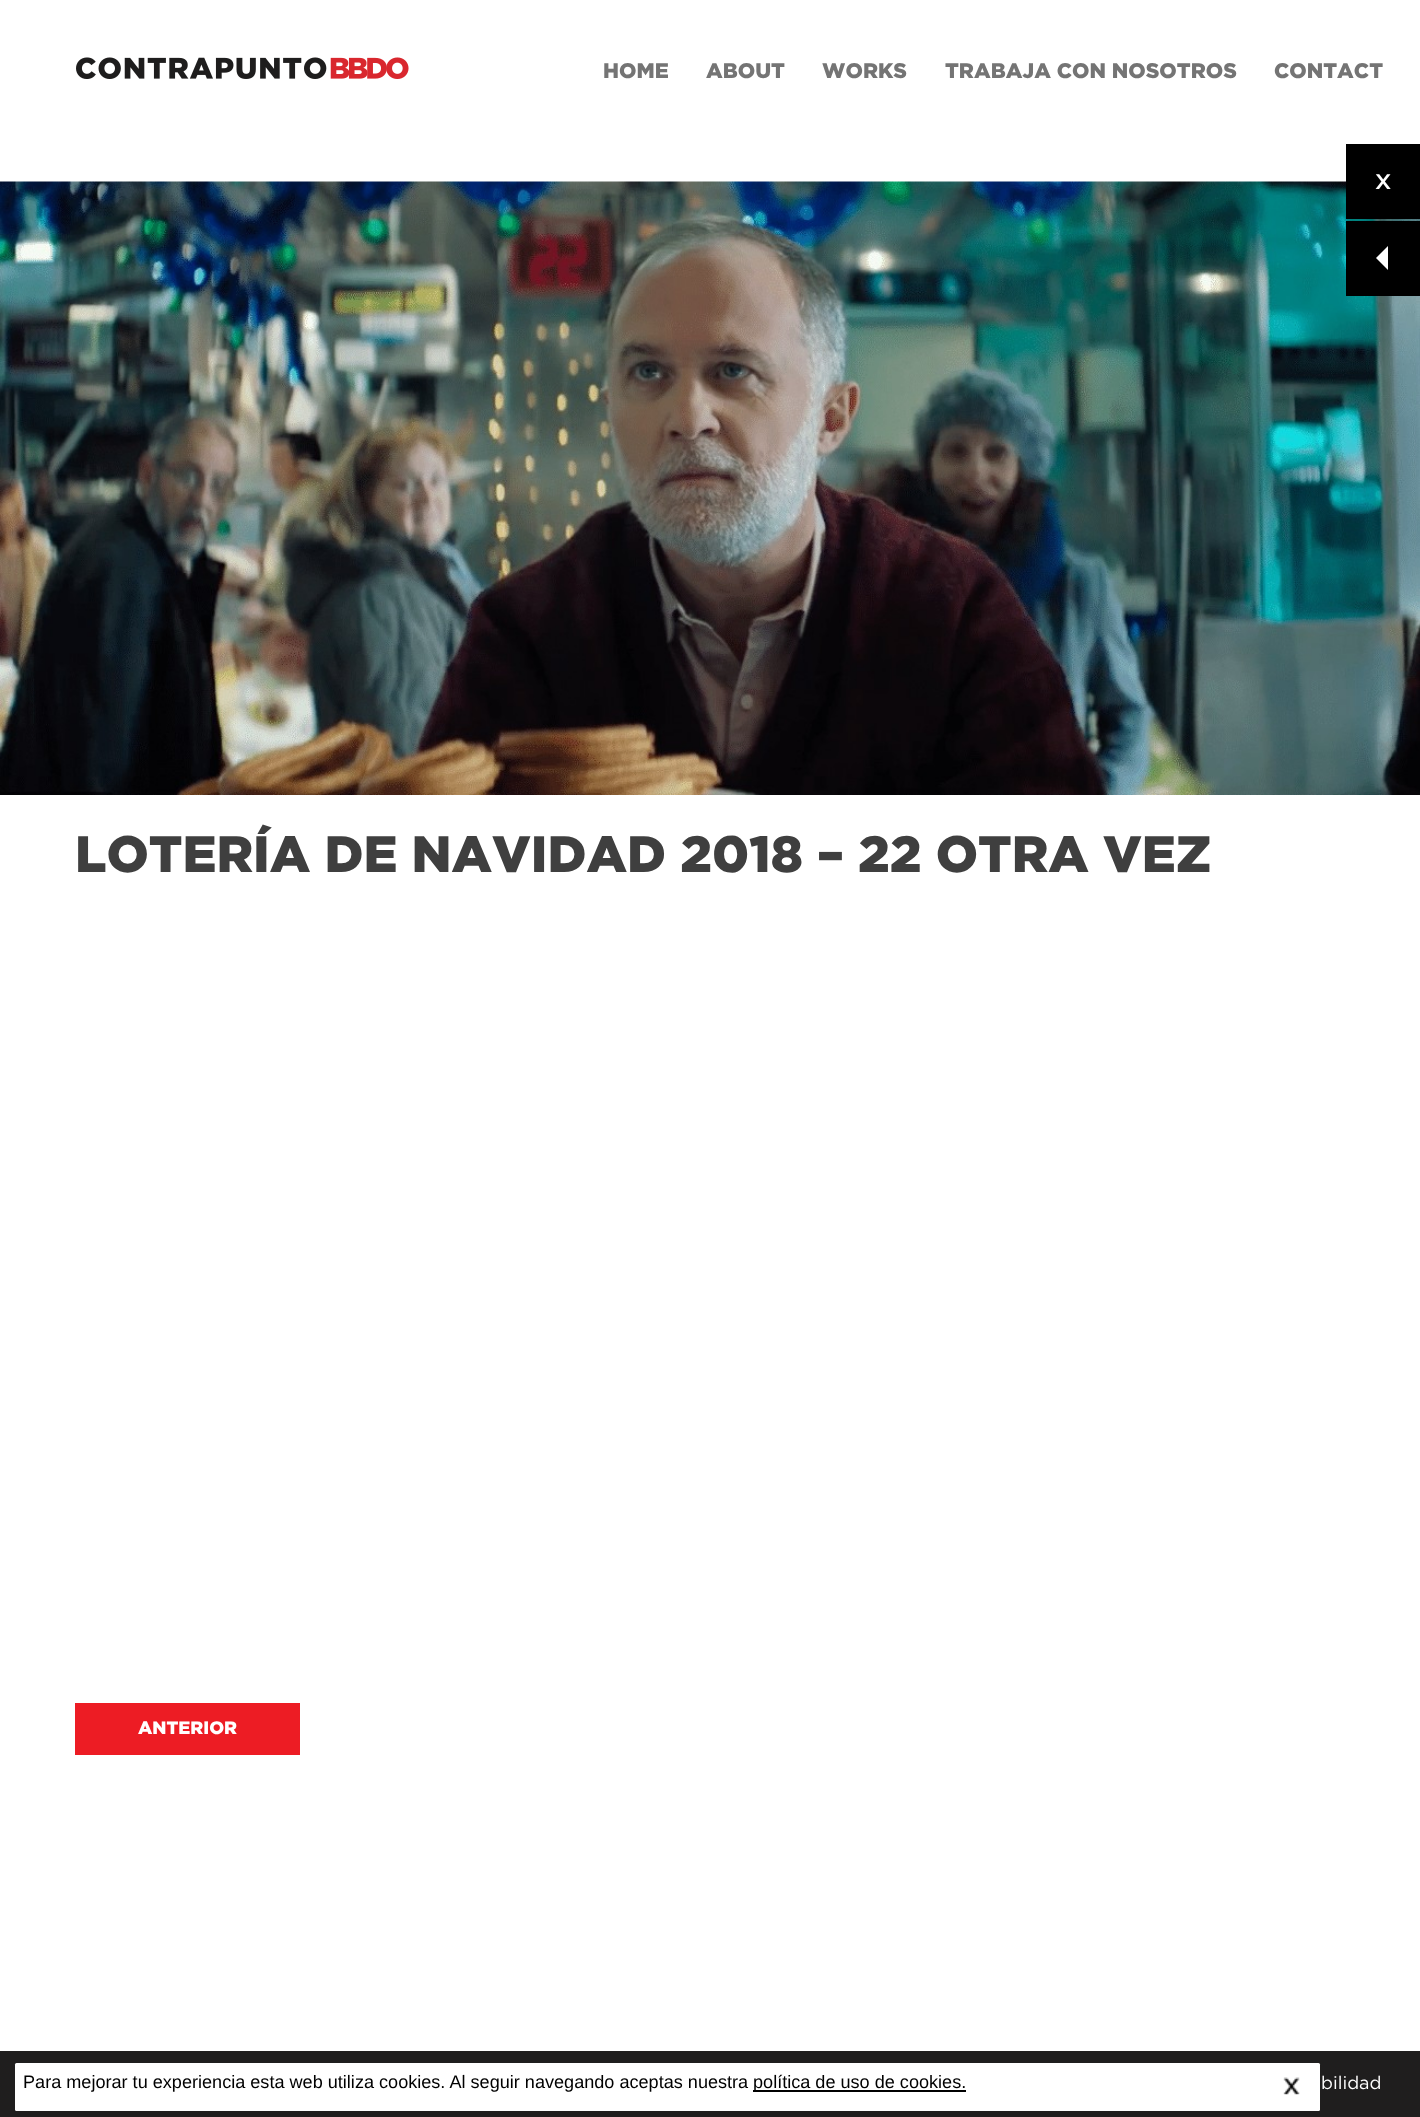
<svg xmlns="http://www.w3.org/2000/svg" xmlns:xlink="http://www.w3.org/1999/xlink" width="1420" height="2117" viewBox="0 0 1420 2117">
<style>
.cls-1{font:900 21px Gotham;fill:#747474}
.cls-2{font:bold 27px Gotham;fill:#ffffff}
.cls-3{font:900 51px Gotham;fill:#3f3f3f}
.cls-4{font:900 18px Gotham;fill:#ffffff}
.cls-5{font:18.1px Liberation Sans;fill:#000000}
.cls-6{font:18px Gotham;fill:#ffffff}
</style>
<rect width="100%" height="100%" fill="#ffffff"/>
<image xlink:href="image0.png" x="76" y="57" width="333" height="22"/>
<image xlink:href="image1.png" x="0" y="181" width="1420" height="614"/>
<rect fill="#000000" x="1346" y="144" width="74" height="75"/>
<rect fill="#000000" x="1346" y="221" width="74" height="75"/>
<path fill="#ffffff" d="M1388 246L1376 258L1388 270Z"/>
<rect fill="#ed1c24" x="75" y="1703" width="225" height="52"/>
<rect fill="#1f1e1e" x="0" y="2051" width="1420" height="66"/>
<rect fill="#ffffff" x="15" y="2063" width="1305" height="48" rx="1.5"/>
<rect fill="#000000" x="753" y="2090" width="213" height="2"/>
<image xlink:href="image2.png" x="1283" y="2077" width="17" height="18"/>
<text class="cls-1" x="603" y="78">HOME</text>
<text class="cls-1" x="706" y="78">ABOUT</text>
<text class="cls-1" x="822" y="78">WORKS</text>
<text class="cls-1" x="945" y="78">TRABAJA CON NOSOTROS</text>
<text class="cls-1" x="1274" y="78">CONTACT</text>
<text class="cls-2" x="1375" y="189">x</text>
<text class="cls-3" x="75" y="872">LOTERÍA DE NAVIDAD 2018 – 22 OTRA VEZ</text>
<text class="cls-4" x="138" y="1734">ANTERIOR</text>
<text class="cls-5" x="23" y="2088">Para mejorar tu experiencia esta web utiliza cookies. Al seguir navegando aceptas nuestra</text>
<text class="cls-5" x="753" y="2088">política de uso de cookies.</text>
<text class="cls-6" x="1321" y="2089">bilidad</text>
</svg>
